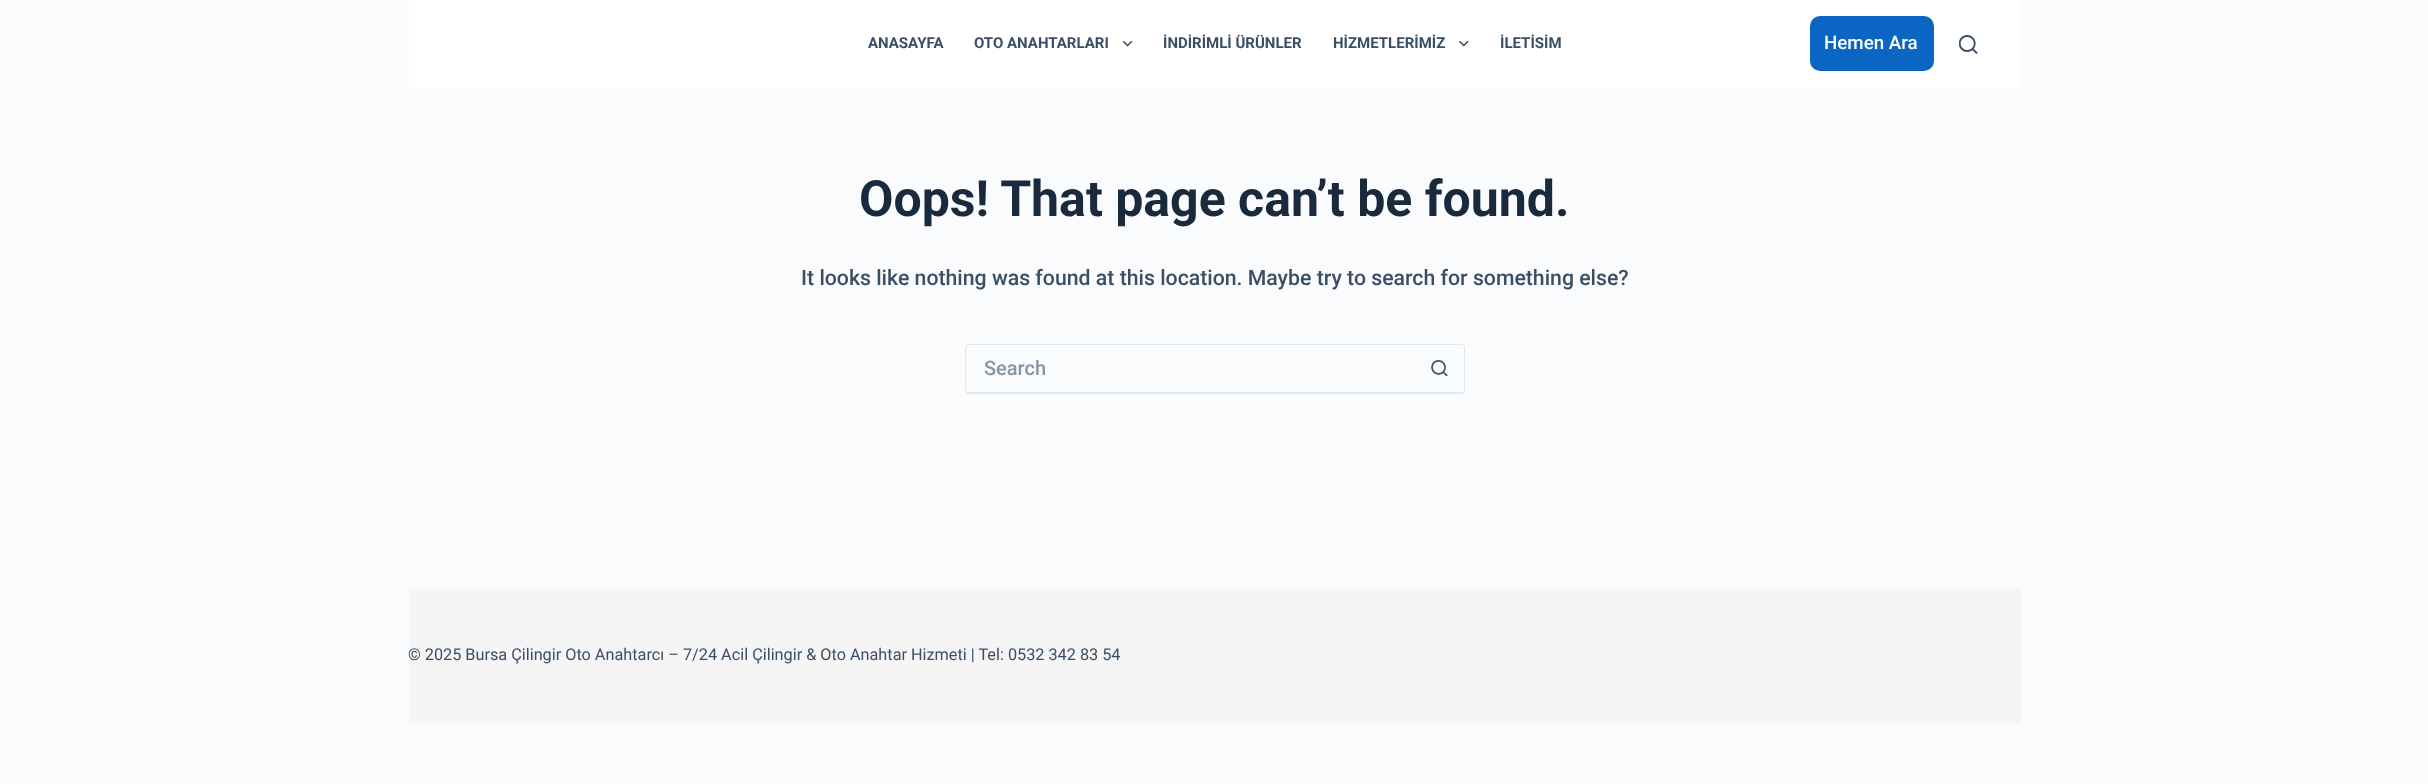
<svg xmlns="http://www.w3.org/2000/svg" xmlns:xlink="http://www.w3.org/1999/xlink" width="2428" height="784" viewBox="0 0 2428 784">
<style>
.cls-1{font:bold 15px Roboto;fill:#3a4f66}
.cls-2{font:500 18.75px Roboto;fill:#ffffff}
.cls-3{font:bold 50px Roboto;fill:#192a3d}
.cls-4{font:500 21.25px Roboto;fill:#3a4f66}
.cls-5{font:500 20px Roboto;fill:#8794a2}
.cls-6{font:16.25px Roboto;fill:#3a4f66}
</style>
<rect width="100%" height="100%" fill="#fafbfc"/>
<rect fill="#ffffff" x="409" y="0" width="1612" height="88"/>
<image xlink:href="image0.png" x="1123" y="41" width="10" height="6"/>
<image xlink:href="image1.png" x="1459" y="41" width="10" height="6"/>
<rect fill="#0a66c2" x="1810" y="16" width="124" height="55" rx="10"/>
<image xlink:href="image2.png" x="1959" y="35" width="19" height="19"/>
<path fill="#e1e8ed" fill-rule="evenodd" d="M969 344H1415V394H969C967 394 965 392 965 390V348C965 345 967 344 969 344ZM969 345H1415V392H969C967 392 966 391 966 390V348C966 346 967 345 969 345Z"/>
<path fill="#e1e8ed" fill-rule="evenodd" d="M1415 344H1461C1463 344 1465 345 1465 348V390C1465 392 1463 394 1461 394H1415ZM1415 345H1461C1463 345 1464 346 1464 348V390C1464 391 1463 392 1461 392H1415Z"/>
<image xlink:href="image3.png" x="1431" y="360" width="17" height="16"/>
<rect fill="#f5f5f5" x="409" y="589" width="1612" height="134"/>
<text class="cls-1" x="868" y="48">ANASAYFA</text>
<text class="cls-1" x="974" y="48">OTO ANAHTARLARI</text>
<text class="cls-1" x="1163" y="48">İNDİRİMLİ ÜRÜNLER</text>
<text class="cls-1" x="1333" y="48">HİZMETLERİMİZ</text>
<text class="cls-1" x="1500" y="48">İLETİSİM</text>
<text class="cls-2" x="1824" y="49">Hemen Ara</text>
<text class="cls-3" x="859" y="216">Oops! That page can’t be found.</text>
<text class="cls-4" x="801" y="285">It looks like nothing was found at this location. Maybe try to search for something else?</text>
<text class="cls-5" x="984" y="375">Search</text>
<text class="cls-6" x="408" y="660">© 2025 Bursa Çilingir Oto Anahtarcı – 7/24 Acil Çilingir &amp; Oto Anahtar Hizmeti | Tel: 0532 342 83 54</text>
</svg>
